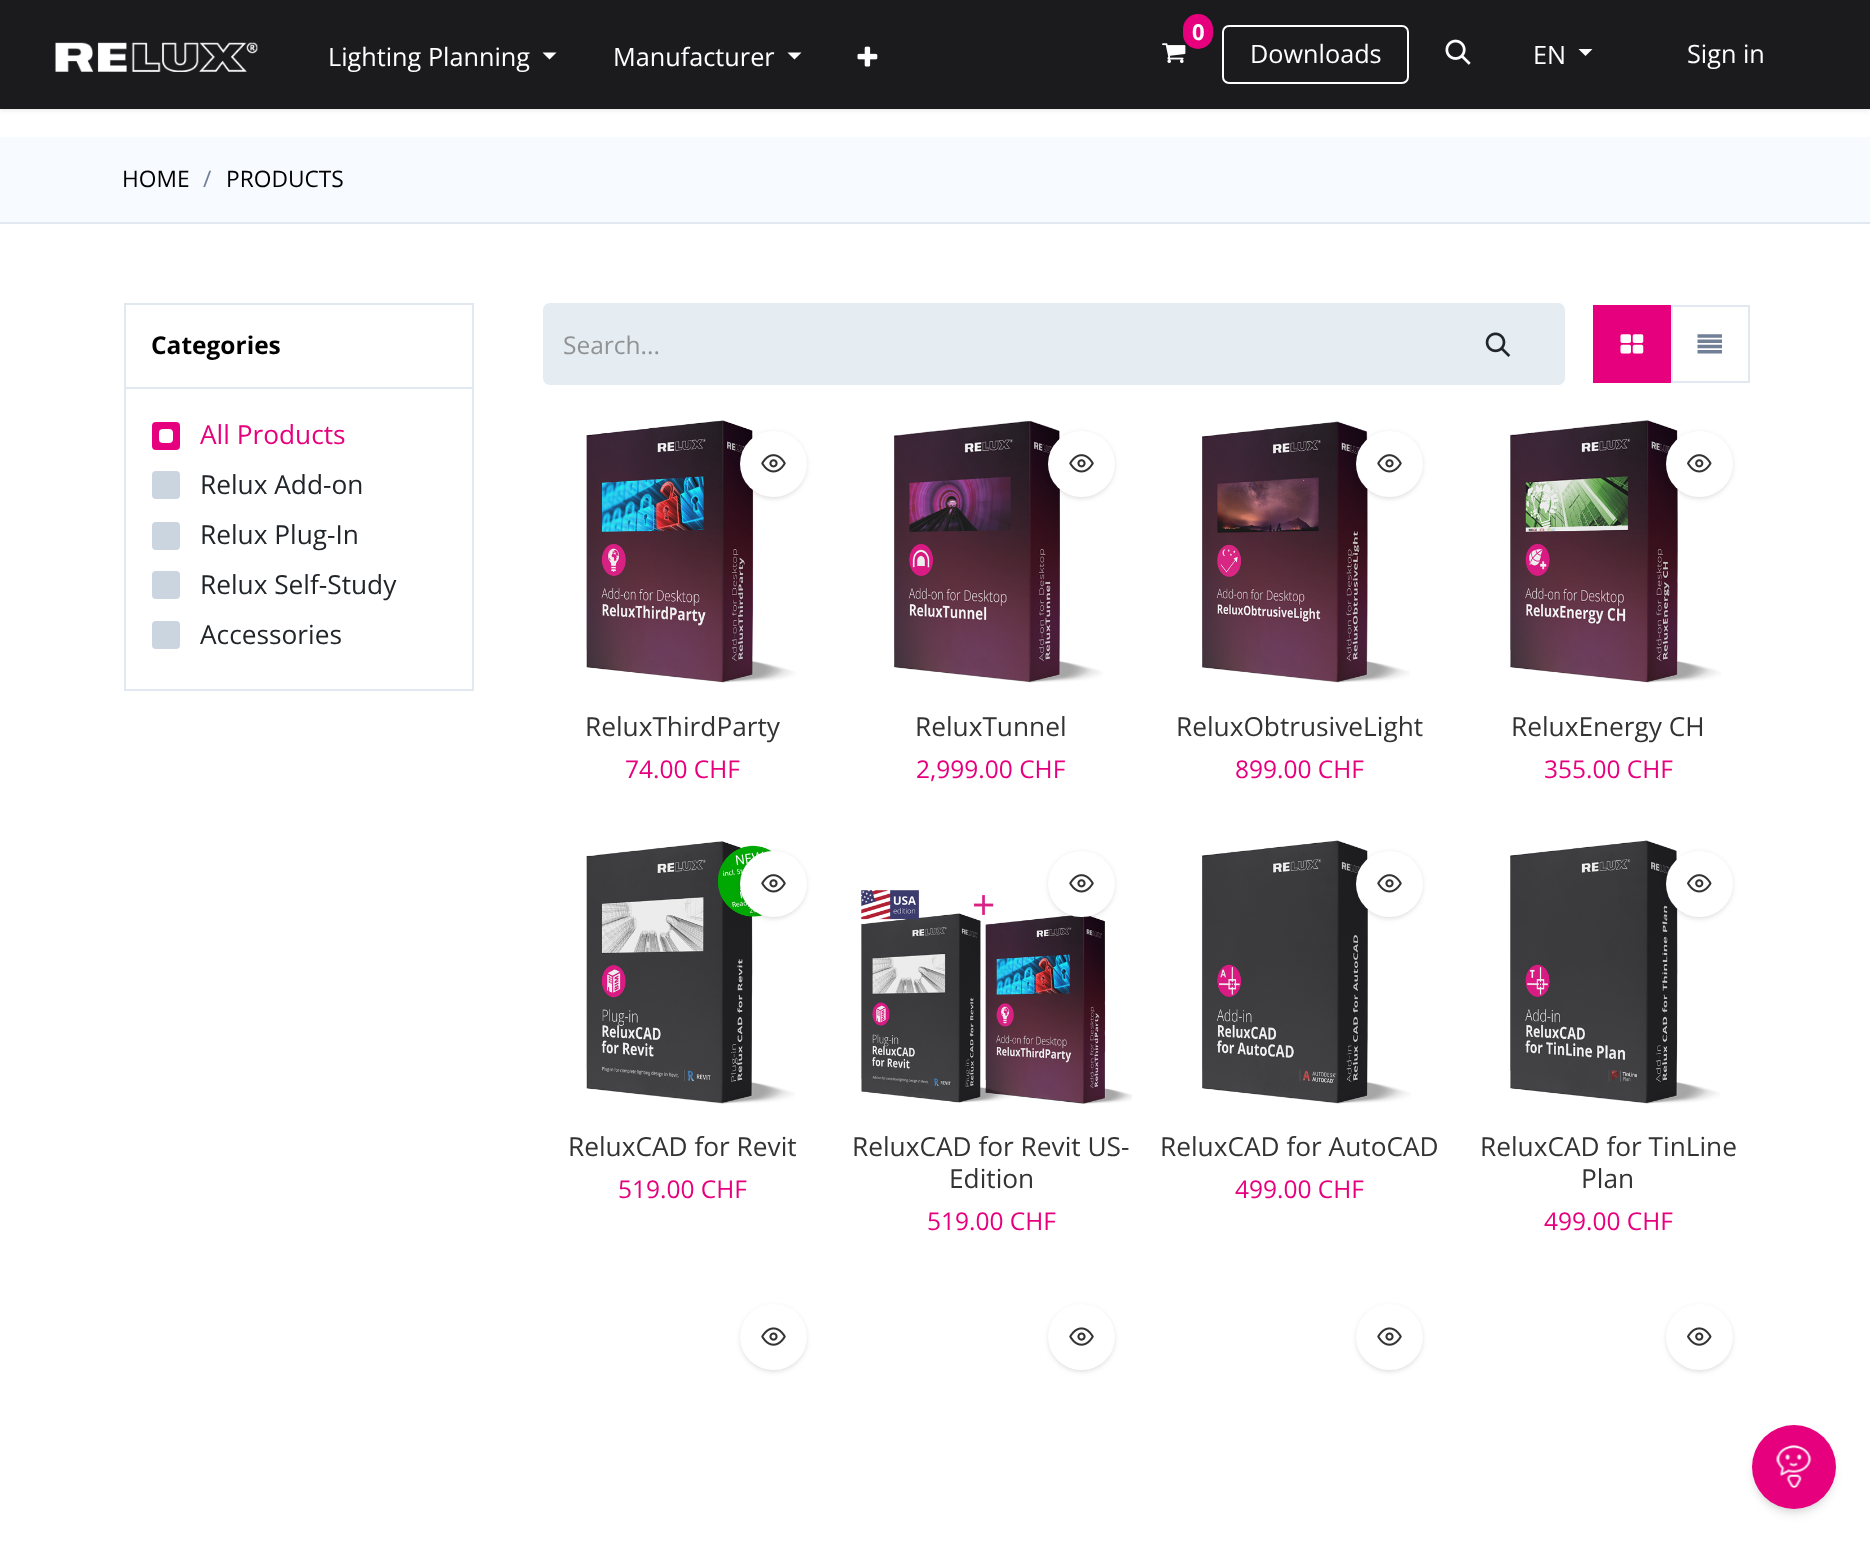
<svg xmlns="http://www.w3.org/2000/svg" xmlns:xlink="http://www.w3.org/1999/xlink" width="1870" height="1542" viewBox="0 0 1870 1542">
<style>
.cls-1{font:25.25px Open Sans;fill:#ffffff}
.cls-2{font:bold 22px Open Sans;fill:#ffffff}
.cls-3{font:22.75px Open Sans;fill:#000000}
.cls-4{font:22.75px Open Sans;fill:#718096}
.cls-5{font:bold 24.5px Open Sans;fill:#000000}
.cls-6{font:26.25px Open Sans;fill:#e6007e}
.cls-7{font:26.25px Open Sans;fill:#212529}
.cls-8{font:24.5px Open Sans;fill:#909294}
.cls-9{font:26.25px Open Sans;fill:#333333}
.cls-10{font:24.5px Open Sans;fill:#e6007e}
</style>
<rect width="100%" height="100%" fill="#ffffff"/>
<rect fill="#000000" fill-opacity="0.1" filter="blur(2.5px)" x="0" y="2" width="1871" height="108"/>
<rect fill="#1b1b1e" x="0" y="0" width="1870" height="109"/>
<image xlink:href="image0.png" x="55" y="42" width="203" height="30"/>
<path fill="#ffffff" d="M542.5 52.5H556.5L549.5 59.5Z"/>
<path fill="#ffffff" d="M787.5 52.5H801.5L794.5 59.5Z"/>
<image xlink:href="image1.png" x="857" y="46" width="21" height="21"/>
<image xlink:href="image2.png" x="1162" y="43" width="24" height="20"/>
<rect fill="#e6007e" x="1183" y="14" width="30" height="35" rx="15"/>
<rect fill="none" stroke="#ffffff" stroke-width="2" x="1223" y="26" width="185" height="57" rx="6"/>
<image xlink:href="image3.png" x="1445" y="39" width="26" height="26"/>
<path fill="#ffffff" d="M1578.5 49H1592.5L1585.5 56Z"/>
<rect fill="#f7faff" x="0" y="137" width="1870" height="85"/>
<rect fill="#e2e8f0" x="0" y="222" width="1870" height="2"/>
<rect fill="none" stroke="#e2e8f0" stroke-width="2" x="125" y="304" width="348" height="386"/>
<rect fill="#e2e8f0" x="126" y="387" width="347" height="2"/>
<rect fill="#e6007e" x="152" y="422" width="28" height="28" rx="4"/>
<rect fill="#ffffff" x="159" y="429" width="14" height="14" rx="4"/>
<rect fill="#cbd5e0" x="152" y="471" width="28" height="28" rx="4"/>
<rect fill="#cbd5e0" x="152" y="522" width="28" height="28" rx="4"/>
<rect fill="#cbd5e0" x="152" y="571" width="28" height="28" rx="4"/>
<rect fill="#cbd5e0" x="152" y="621" width="28" height="28" rx="4"/>
<path fill="#e5edf2" d="M550 303H1433V385H550C546 385 543 382 543 378V310C543 306 546 303 550 303Z"/>
<path fill="#e5edf2" stroke="#e5edf2" stroke-width="2" d="M1433 304H1558C1561.5 304 1564 306.5 1564 310V378C1564 381.5 1561.5 384 1558 384H1433Z"/>
<image xlink:href="image4.png" x="1485" y="332" width="26" height="25"/>
<rect fill="#e6007e" x="1593" y="305" width="78" height="78"/>
<image xlink:href="image5.png" x="1620" y="334" width="24" height="20"/>
<rect fill="none" stroke="#e2e8f0" stroke-width="2" x="1672" y="306" width="77" height="76"/>
<image xlink:href="image6.png" x="1697" y="334" width="25" height="20"/>
<image xlink:href="image7.png" x="586" y="420" width="210" height="263"/>
<rect fill="#333333" fill-opacity="0.1" filter="blur(2px)" x="742" y="434" width="63" height="63" rx="31.5"/>
<rect fill="#333333" fill-opacity="0.1" filter="blur(2.5px)" x="740" y="432" width="67" height="67" rx="33.5"/>
<rect fill="#ffffff" x="740" y="431" width="67" height="66" rx="33"/>
<image xlink:href="image8.png" x="761" y="454" width="25" height="19"/>
<image xlink:href="image9.png" x="894" y="421" width="209" height="262"/>
<rect fill="#333333" fill-opacity="0.1" filter="blur(2px)" x="1050" y="434" width="63" height="63" rx="31.5"/>
<rect fill="#333333" fill-opacity="0.1" filter="blur(2.5px)" x="1048" y="432" width="67" height="67" rx="33.5"/>
<rect fill="#ffffff" x="1048" y="431" width="67" height="66" rx="33"/>
<image xlink:href="image8.png" x="1069" y="454" width="25" height="19"/>
<image xlink:href="image10.png" x="1202" y="421" width="208" height="262"/>
<rect fill="#333333" fill-opacity="0.1" filter="blur(2px)" x="1358" y="434" width="63" height="63" rx="31.5"/>
<rect fill="#333333" fill-opacity="0.1" filter="blur(2.5px)" x="1356" y="432" width="67" height="67" rx="33.5"/>
<rect fill="#ffffff" x="1356" y="431" width="67" height="66" rx="33"/>
<image xlink:href="image8.png" x="1377" y="454" width="25" height="19"/>
<image xlink:href="image11.png" x="1510" y="420" width="211" height="263"/>
<rect fill="#333333" fill-opacity="0.1" filter="blur(2px)" x="1668" y="434" width="63" height="63" rx="31.5"/>
<rect fill="#333333" fill-opacity="0.1" filter="blur(2.5px)" x="1666" y="432" width="67" height="67" rx="33.5"/>
<rect fill="#ffffff" x="1666" y="431" width="67" height="66" rx="33"/>
<image xlink:href="image12.png" x="1687" y="454" width="25" height="19"/>
<image xlink:href="image13.png" x="586" y="841" width="209" height="263"/>
<rect fill="#333333" fill-opacity="0.1" filter="blur(2px)" x="742" y="854" width="63" height="63" rx="31.5"/>
<rect fill="#333333" fill-opacity="0.1" filter="blur(2.5px)" x="740" y="852" width="67" height="67" rx="33.5"/>
<rect fill="#ffffff" x="740" y="851" width="67" height="66" rx="33"/>
<image xlink:href="image8.png" x="761" y="874" width="25" height="19"/>
<image xlink:href="image14.png" x="861" y="890" width="271" height="214"/>
<rect fill="#333333" fill-opacity="0.1" filter="blur(2px)" x="1050" y="854" width="63" height="63" rx="31.5"/>
<rect fill="#333333" fill-opacity="0.1" filter="blur(2.5px)" x="1048" y="852" width="67" height="67" rx="33.5"/>
<rect fill="#ffffff" x="1048" y="851" width="67" height="66" rx="33"/>
<image xlink:href="image8.png" x="1069" y="874" width="25" height="19"/>
<image xlink:href="image15.png" x="1202" y="840" width="209" height="264"/>
<rect fill="#333333" fill-opacity="0.1" filter="blur(2px)" x="1358" y="854" width="63" height="63" rx="31.5"/>
<rect fill="#333333" fill-opacity="0.1" filter="blur(2.5px)" x="1356" y="852" width="67" height="67" rx="33.5"/>
<rect fill="#ffffff" x="1356" y="851" width="67" height="66" rx="33"/>
<image xlink:href="image8.png" x="1377" y="874" width="25" height="19"/>
<image xlink:href="image16.png" x="1510" y="840" width="210" height="264"/>
<rect fill="#333333" fill-opacity="0.1" filter="blur(2px)" x="1668" y="854" width="63" height="63" rx="31.5"/>
<rect fill="#333333" fill-opacity="0.1" filter="blur(2.5px)" x="1666" y="852" width="67" height="67" rx="33.5"/>
<rect fill="#ffffff" x="1666" y="851" width="67" height="66" rx="33"/>
<image xlink:href="image12.png" x="1687" y="874" width="25" height="19"/>
<rect fill="#333333" fill-opacity="0.1" filter="blur(2px)" x="742" y="1307" width="63" height="63" rx="31.5"/>
<rect fill="#333333" fill-opacity="0.1" filter="blur(2.5px)" x="740" y="1306" width="67" height="66" rx="33"/>
<rect fill="#ffffff" x="740" y="1304" width="67" height="66" rx="33"/>
<image xlink:href="image17.png" x="761" y="1327" width="25" height="19"/>
<rect fill="#333333" fill-opacity="0.1" filter="blur(2px)" x="1050" y="1307" width="63" height="63" rx="31.5"/>
<rect fill="#333333" fill-opacity="0.1" filter="blur(2.5px)" x="1048" y="1306" width="67" height="66" rx="33"/>
<rect fill="#ffffff" x="1048" y="1304" width="67" height="66" rx="33"/>
<image xlink:href="image17.png" x="1069" y="1327" width="25" height="19"/>
<rect fill="#333333" fill-opacity="0.1" filter="blur(2px)" x="1358" y="1307" width="63" height="63" rx="31.5"/>
<rect fill="#333333" fill-opacity="0.1" filter="blur(2.5px)" x="1356" y="1306" width="67" height="66" rx="33"/>
<rect fill="#ffffff" x="1356" y="1304" width="67" height="66" rx="33"/>
<image xlink:href="image17.png" x="1377" y="1327" width="25" height="19"/>
<rect fill="#333333" fill-opacity="0.1" filter="blur(2px)" x="1668" y="1307" width="63" height="63" rx="31.5"/>
<rect fill="#333333" fill-opacity="0.1" filter="blur(2.5px)" x="1666" y="1306" width="67" height="66" rx="33"/>
<rect fill="#ffffff" x="1666" y="1304" width="67" height="66" rx="33"/>
<image xlink:href="image18.png" x="1687" y="1327" width="25" height="19"/>
<rect fill="#000000" fill-opacity="0.1" filter="blur(3.5px)" x="1755" y="1432" width="77" height="77" rx="38.5"/>
<rect fill="#000000" fill-opacity="0.1" filter="blur(5px)" x="1754" y="1433" width="80" height="81" rx="40"/>
<circle fill="#e6007e" cx="1794" cy="1467" r="42"/>
<image xlink:href="image19.png" x="1776" y="1445" width="36" height="43"/>
<text class="cls-1" x="328" y="66">Lighting Planning</text>
<text class="cls-1" x="613" y="66">Manufacturer</text>
<text class="cls-2" x="1192" y="40">0</text>
<text class="cls-1" x="1250" y="63">Downloads</text>
<text class="cls-1" x="1533" y="64">EN</text>
<text class="cls-1" x="1687" y="63">Sign in</text>
<text class="cls-3" x="122" y="187">HOME</text>
<text class="cls-4" x="203" y="187">/</text>
<text class="cls-3" x="226" y="187">PRODUCTS</text>
<text class="cls-5" x="151" y="354">Categories</text>
<text class="cls-6" x="200" y="444">All Products</text>
<text class="cls-7"><tspan x="200" y="494">Relux Add-on</tspan><tspan x="200" y="544">Relux Plug-In</tspan><tspan x="200" y="594">Relux Self-Study</tspan><tspan x="200" y="644">Accessories</tspan></text>
<text class="cls-8" x="563" y="354">Search...</text>
<text class="cls-9" x="585" y="736">ReluxThirdParty</text>
<text class="cls-10" x="625" y="778">74.00 CHF</text>
<text class="cls-9" x="915" y="736">ReluxTunnel</text>
<text class="cls-10" x="916" y="778">2,999.00 CHF</text>
<text class="cls-9" x="1176" y="736">ReluxObtrusiveLight</text>
<text class="cls-10" x="1235" y="778">899.00 CHF</text>
<text class="cls-9" x="1511" y="736">ReluxEnergy CH</text>
<text class="cls-10" x="1544" y="778">355.00 CHF</text>
<text class="cls-9" x="568" y="1156">ReluxCAD for Revit</text>
<text class="cls-10" x="618" y="1198">519.00 CHF</text>
<text class="cls-9" x="852" y="1156">ReluxCAD for Revit US-</text>
<text class="cls-9" x="949" y="1188">Edition</text>
<text class="cls-10" x="927" y="1230">519.00 CHF</text>
<text class="cls-9" x="1160" y="1156">ReluxCAD for AutoCAD</text>
<text class="cls-10" x="1235" y="1198">499.00 CHF</text>
<text class="cls-9" x="1480" y="1156">ReluxCAD for TinLine</text>
<text class="cls-9" x="1581" y="1188">Plan</text>
<text class="cls-10" x="1544" y="1230">499.00 CHF</text>
</svg>
